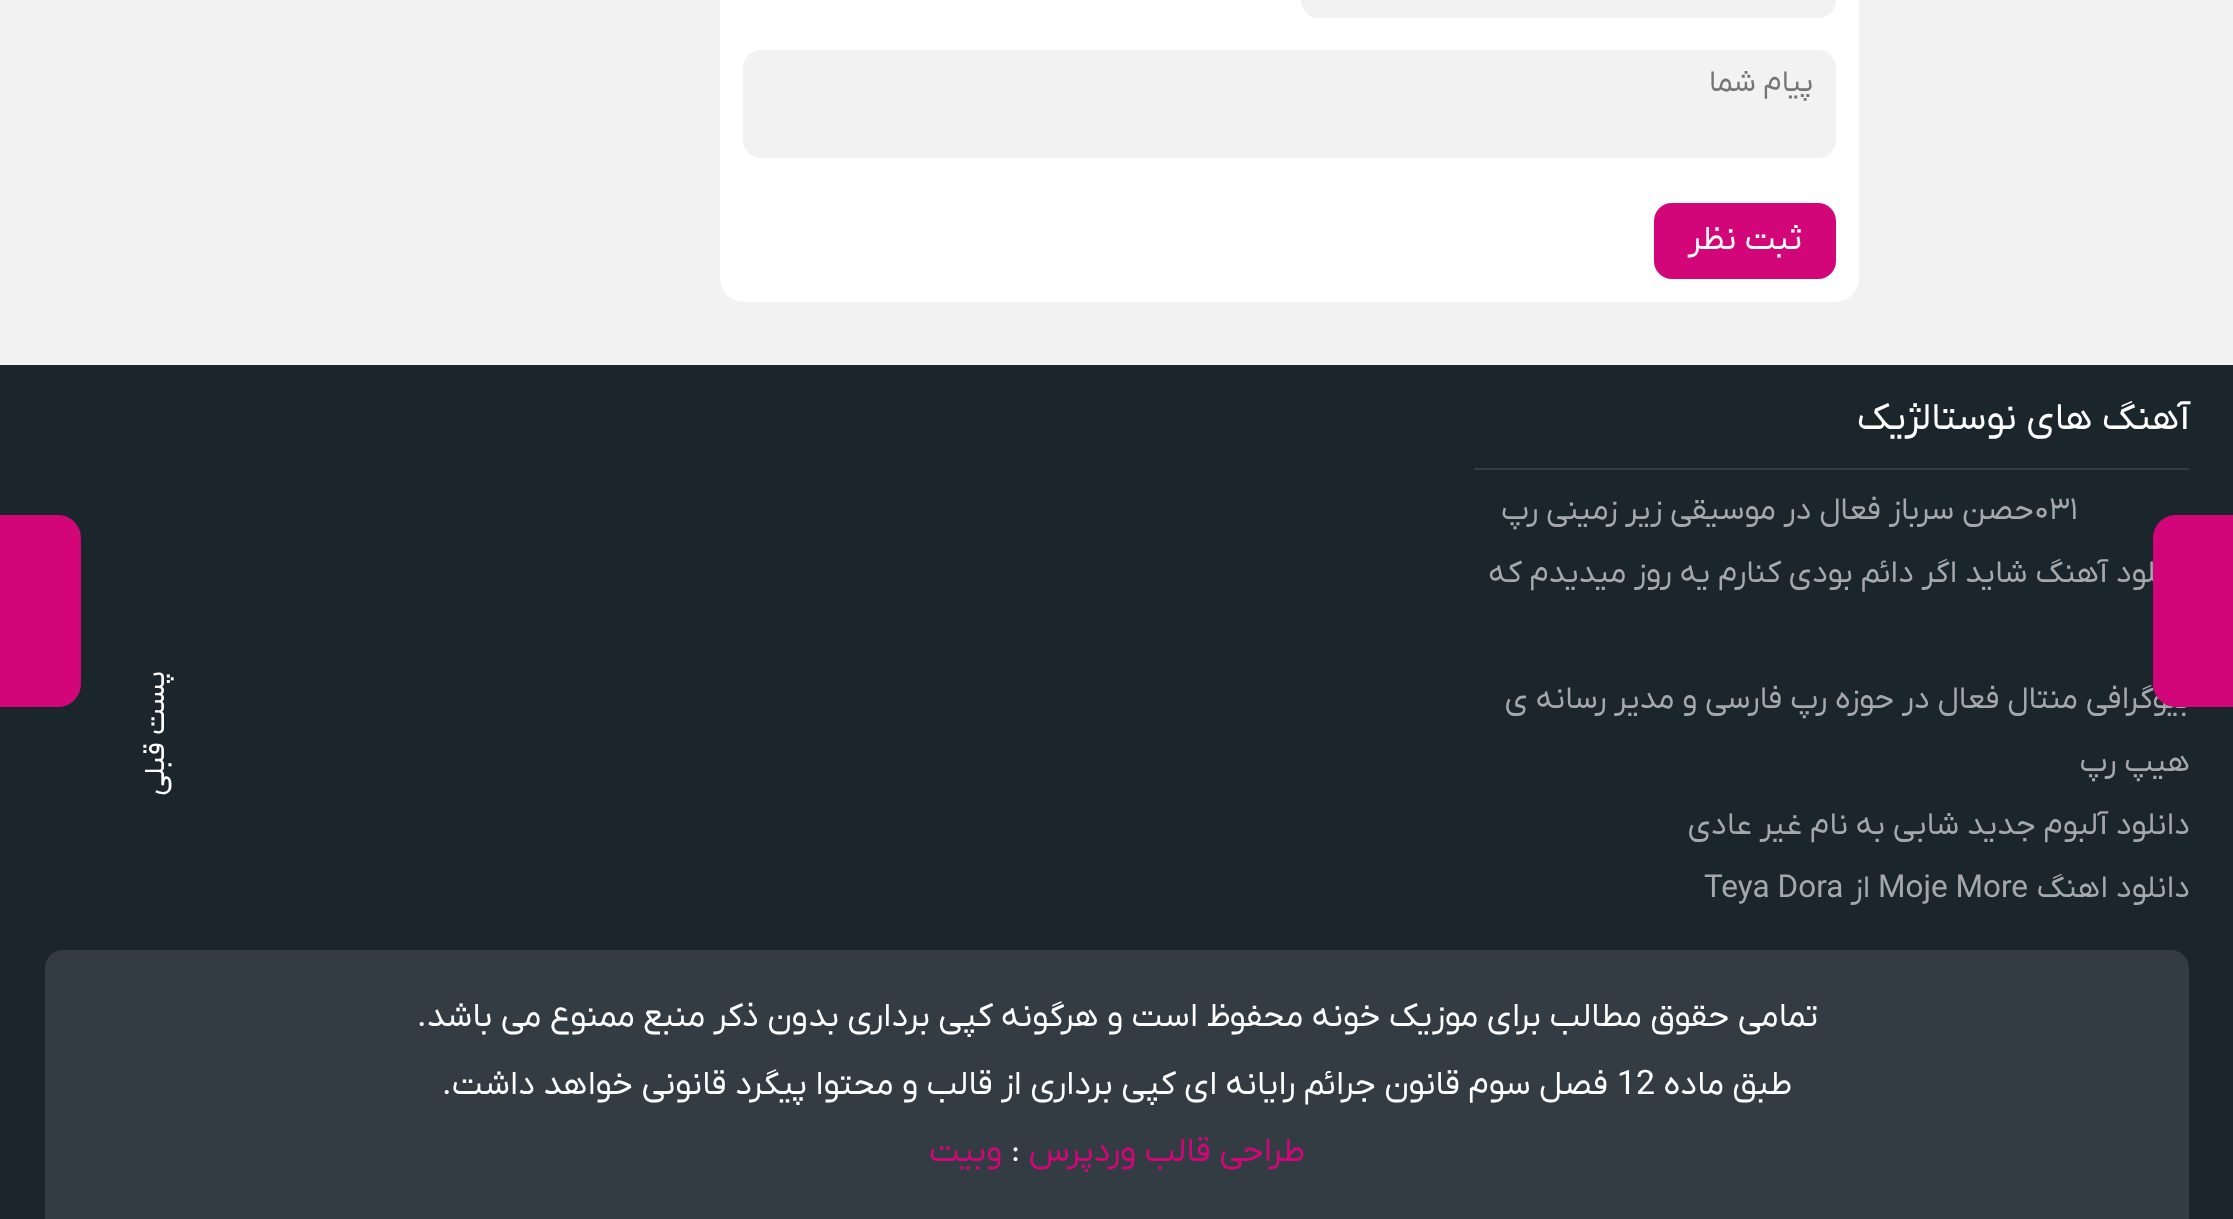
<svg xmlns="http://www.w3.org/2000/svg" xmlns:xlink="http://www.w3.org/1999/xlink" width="2233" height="1219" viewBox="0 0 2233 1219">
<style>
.cls-1{font:30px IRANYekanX;direction:rtl;fill:#757575}
.cls-2{font:33.75px IRANYekanX;direction:rtl;fill:#ffffff}
.cls-3{font:29.25px IRANYekanX;direction:rtl;fill:#ffffff}
.cls-4{font:38.25px IRANYekanX;direction:rtl;fill:#ffffff}
.cls-5{font:31.5px IRANYekanX;fill:#a4a8ab}
.cls-6{font:31.5px IRANYekanX;direction:rtl;fill:#a4a8ab}
.cls-7{font:33.75px IRANYekanX;fill:#ffffff}
.cls-8{font:33.75px IRANYekanX;direction:rtl;fill:#d20679}
</style>
<defs>
<clipPath id="clip1"><rect x="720" y="-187" width="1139" height="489" rx="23"/></clipPath>
</defs>
<rect width="100%" height="100%" fill="#f2f2f2"/>
<g clip-path="url(#clip1)">
<rect fill="#000000" fill-opacity="0.1" filter="blur(11px)" x="720" y="-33" width="1139" height="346"/>
</g>
<rect fill="#ffffff" x="720" y="-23" width="1139" height="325" rx="23"/>
<rect fill="#f2f2f2" x="1301" y="-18" width="535" height="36" rx="18"/>
<rect fill="#f2f2f2" x="743" y="50" width="1093" height="108" rx="18"/>
<rect fill="#d20679" x="1654" y="203" width="182" height="76" rx="18"/>
<rect fill="#1b262c" x="0" y="365" width="2233" height="854"/>
<path fill="#d20679" d="M0 515H58C70.5 515 81 525.5 81 538V684C81 696.5 70.5 707 58 707H0Z"/>
<rect fill="#323c41" x="1474" y="468" width="715" height="2"/>
<path fill="#323c42" d="M63 950H2171C2181 950 2189 958 2189 968V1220H45V968C45 958 53 950 63 950Z"/>
<text class="cls-1" x="1813" y="91">پیام شما</text>
<text class="cls-2" x="1802" y="249">ثبت نظر</text>
<text class="cls-3" x="164" y="671" transform="rotate(-90 164 671)">پست قبلی</text>
<text class="cls-4" x="2190" y="429">آهنگ های نوستالژیک</text>
<text class="cls-5" x="2034" y="519">۰۳۱</text>
<text class="cls-6" x="2034" y="519">حصن سرباز فعال در موسیقی زیر زمینی رپ</text>
<text class="cls-6" x="2190" y="582">دانلود آهنگ شاید اگر دائم بودی کنارم یه روز میدیدم که</text>
<text class="cls-6" x="2190" y="708">بیوگرافی منتال فعال در حوزه رپ فارسی و مدیر رسانه ی</text>
<path fill="#d20679" d="M2176 515H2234V707H2176C2163.5 707 2153 696.5 2153 684V538C2153 525.5 2163.5 515 2176 515Z"/>
<text class="cls-3" x="2339" y="677" transform="rotate(-90 2339 677)">پست بعدی</text>
<text class="cls-6" x="2190" y="771">هیپ رپ</text>
<text class="cls-6" x="2190" y="834">دانلود آلبوم جدید شابی به نام غیر عادی</text>
<text class="cls-6" x="2190" y="897">دانلود اهنگ</text>
<text class="cls-5" x="1878" y="897">Moje More</text>
<text class="cls-6" x="1870" y="897">از</text>
<text class="cls-5" x="1704" y="897">Teya Dora</text>
<text class="cls-2" x="1818" y="1026">تمامی حقوق مطالب برای موزیک خونه محفوظ است و هرگونه کپی برداری بدون ذکر منبع ممنوع می باشد.</text>
<text class="cls-2" x="1792" y="1094">طبق ماده</text>
<text class="cls-7" x="1617" y="1094">12</text>
<text class="cls-2" x="1608" y="1094">فصل سوم قانون جرائم رایانه ای کپی برداری از قالب و محتوا پیگرد قانونی خواهد داشت.</text>
<text class="cls-8" x="1305" y="1161">طراحی قالب وردپرس</text>
<text class="cls-7" x="1011" y="1161">:</text>
<text class="cls-8" x="1002" y="1161">وبیت</text>
</svg>
